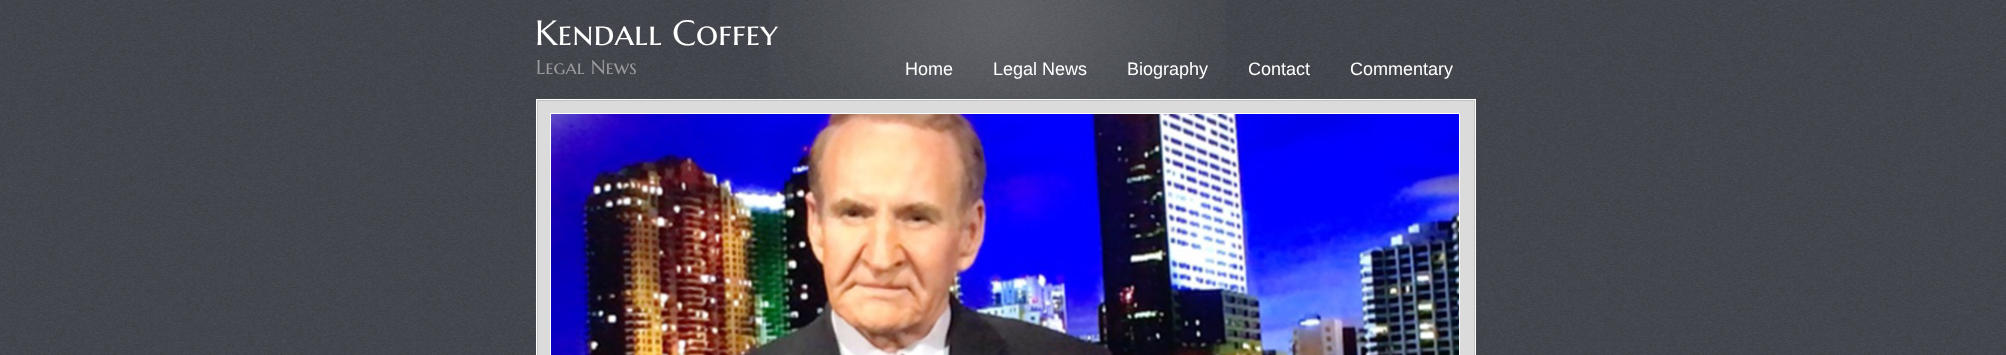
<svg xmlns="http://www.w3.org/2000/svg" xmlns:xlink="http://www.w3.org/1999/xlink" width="2006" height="355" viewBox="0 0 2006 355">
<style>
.cls-1{font:35px Marcellus SC;fill:#ffffff}
.cls-2{font:20px Marcellus SC;fill:#9a9b9d}
.cls-3{font:18px Liberation Sans;fill:#ffffff}
</style>
<rect width="100%" height="100%" fill="#ffffff"/>
<image xlink:href="image0.png" x="0" y="0" width="2006" height="355"/>
<image xlink:href="image1.png" x="769" y="0" width="457" height="99"/>
<rect fill="#dbdbdb" stroke="#c1c1c1" x="537.5" y="100.5" width="937" height="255"/>
<rect fill="none" stroke="#ffffff" x="536.5" y="99.5" width="939" height="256"/>
<rect fill="none" stroke="#ffffff" x="550.5" y="113.5" width="909" height="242"/>
<image xlink:href="image2.png" x="551" y="114" width="908" height="241"/>
<text class="cls-1" x="535" y="45">Kendall Coffey</text>
<text class="cls-2" x="536" y="74">Legal News</text>
<text class="cls-3" x="905" y="75">Home</text>
<text class="cls-3" x="993" y="75">Legal News</text>
<text class="cls-3" x="1127" y="75">Biography</text>
<text class="cls-3" x="1248" y="75">Contact</text>
<text class="cls-3" x="1350" y="75">Commentary</text>
</svg>
